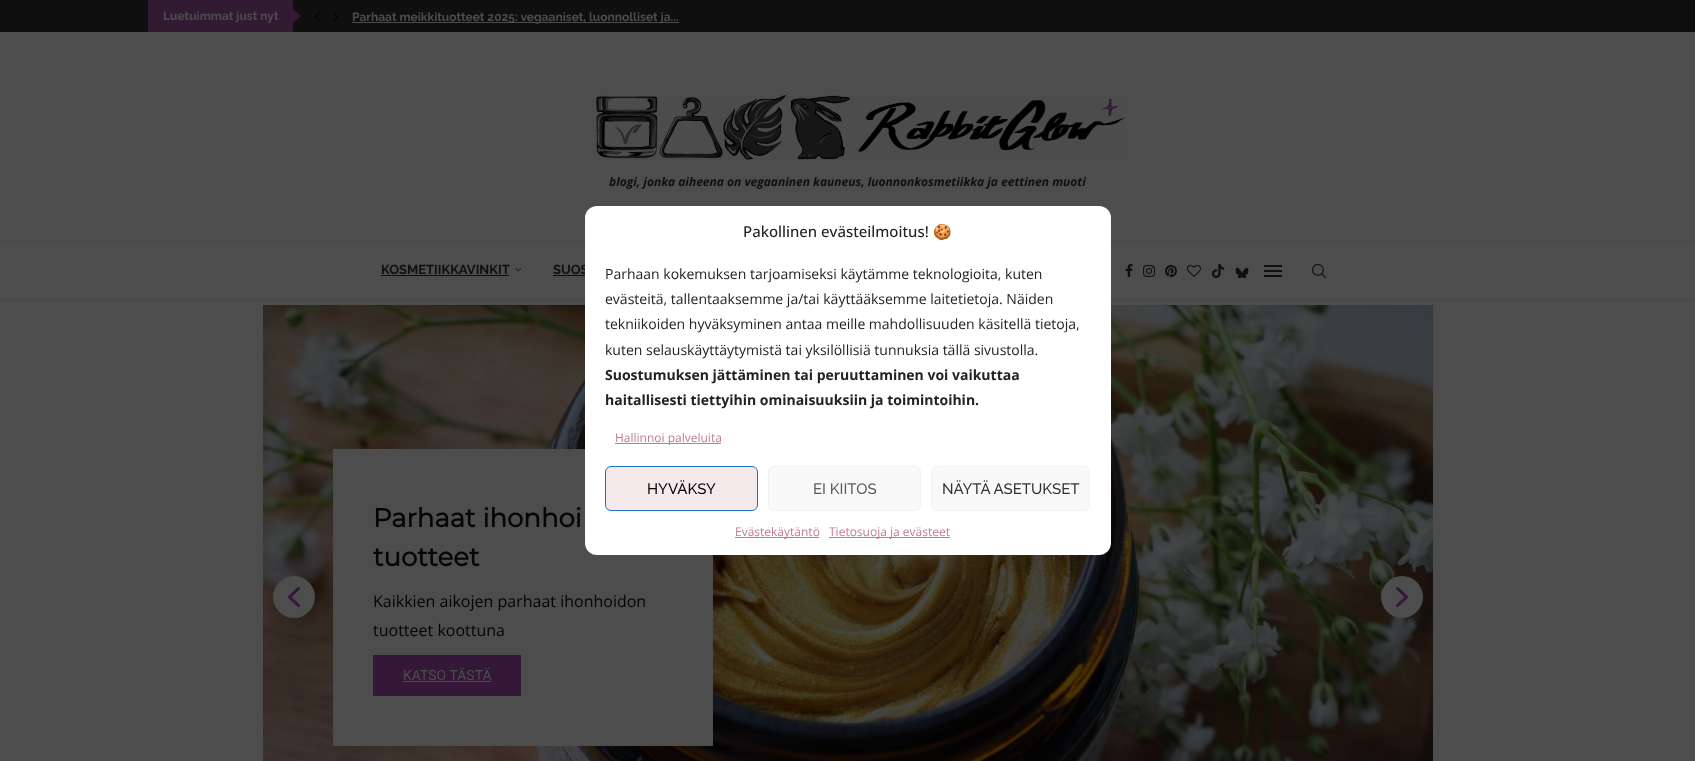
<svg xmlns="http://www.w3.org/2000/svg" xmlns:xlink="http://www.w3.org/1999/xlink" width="1695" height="761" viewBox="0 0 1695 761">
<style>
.cls-1{font:bold 12px Raleway;fill:#4d4d4d}
.cls-2{font:italic bold 12px Open Sans;fill:#0f0f0f}
.cls-3{font:bold 13px Raleway;fill:#0f0f0f}
.cls-4{font:bold 26px Montserrat;fill:#050505}
.cls-5{font:16px Open Sans;fill:#050505}
.cls-6{font:14px Roboto;fill:#4d4d4d}
.cls-7{font:500 15px Open Sans;fill:#222222}
.cls-8{font:15px Noto Color Emoji;fill:#222222}
.cls-9{font:14px Open Sans;fill:#222222}
.cls-10{font:bold 14px Open Sans;fill:#222222}
.cls-11{font:12px Open Sans;fill:#c37b8b}
.cls-12{font:500 15px Raleway;fill:#050505}
.cls-13{font:500 15px Raleway;fill:#5f5b5b}
.cls-14{font:500 15px Raleway;fill:#333333}
</style>
<rect width="100%" height="100%" fill="#4d4d4d"/>
<rect fill="#0f0f0f" x="0" y="0" width="1695" height="32"/>
<rect fill="#321a33" x="148" y="0" width="145" height="32"/>
<path fill="#321a33" d="M292 24V8L301 16Z"/>
<image xlink:href="image0.png" x="314" y="12" width="6" height="10"/>
<image xlink:href="image1.png" x="333" y="12" width="6" height="10"/>
<rect fill="#4d4d4d" x="352" y="22" width="327" height="1"/>
<image xlink:href="image2.png" x="596" y="95" width="529" height="65"/>
<rect fill="#474747" x="0" y="241" width="1695" height="1"/>
<rect fill="#474747" x="0" y="300" width="1695" height="1"/>
<rect fill="#0f0f0f" x="381" y="275" width="128" height="1"/>
<image xlink:href="image3.png" x="515" y="268" width="7" height="4"/>
<rect fill="#0f0f0f" x="553" y="275" width="32" height="1"/>
<image xlink:href="image4.png" x="1125" y="264" width="8" height="13"/>
<image xlink:href="image5.png" x="1143" y="265" width="12" height="12"/>
<image xlink:href="image6.png" x="1165" y="265" width="12" height="12"/>
<image xlink:href="image7.png" x="1187" y="265" width="14" height="12"/>
<image xlink:href="image8.png" x="1211" y="264" width="14" height="14"/>
<image xlink:href="image9.png" x="1235" y="267" width="14" height="12"/>
<rect fill="#0f0f0f" x="1264" y="265" width="18" height="2"/>
<rect fill="#0f0f0f" x="1264" y="275" width="18" height="2"/>
<rect fill="#0f0f0f" x="1264" y="270" width="18" height="2"/>
<image xlink:href="image10.png" x="1312" y="264" width="14" height="14"/>
<image xlink:href="image12.png" x="263" y="305" width="1170" height="456"/>
<circle fill="#4d4d4d" cx="294" cy="597" r="21"/>
<image xlink:href="image11.png" x="288" y="587" width="12" height="20"/>
<rect fill="#4d4d4d" x="333" y="449" width="380" height="297"/>
<rect fill="#351738" x="373" y="655" width="148" height="41"/>
<rect fill="#4d4d4d" x="403" y="681" width="88" height="1"/>
<circle fill="#4d4d4d" cx="1402" cy="597" r="21"/>
<image xlink:href="image13.png" x="1396" y="587" width="12" height="20"/>
<text class="cls-1" x="163" y="20">Luetuimmat just nyt</text>
<text class="cls-1" x="352" y="21">Parhaat meikkituotteet 2025: vegaaniset, luonnolliset ja...</text>
<text class="cls-2" x="609" y="186">blogi, jonka aiheena on vegaaninen kauneus, luonnonkosmetiikka ja eettinen muoti</text>
<text class="cls-3" x="381" y="274">KOSMETIIKKAVINKIT</text>
<text class="cls-3" x="553" y="274">SUOS</text>
<text class="cls-4"><tspan x="373" y="527">Parhaat ihonhoi</tspan><tspan x="373" y="566">tuotteet</tspan></text>
<text class="cls-5"><tspan x="373" y="607">Kaikkien aikojen parhaat ihonhoidon</tspan><tspan x="373" y="636">tuotteet koottuna</tspan></text>
<text class="cls-6" x="403" y="680">KATSO TÄSTÄ</text>
<rect fill="#ffffff" x="585" y="206" width="526" height="349" rx="12"/>
<text class="cls-7" x="743" y="237">Pakollinen evästeilmoitus!</text>
<text class="cls-8" x="933" y="237">🍪</text>
<text class="cls-9"><tspan x="605" y="279">Parhaan kokemuksen tarjoamiseksi käytämme teknologioita, kuten</tspan><tspan x="605" y="304">evästeitä, tallentaaksemme ja/tai käyttääksemme laitetietoja. Näiden</tspan><tspan x="605" y="329">tekniikoiden hyväksyminen antaa meille mahdollisuuden käsitellä tietoja,</tspan><tspan x="605" y="355">kuten selauskäyttäytymistä tai yksilöllisiä tunnuksia tällä sivustolla.</tspan></text>
<text class="cls-10"><tspan x="605" y="380">Suostumuksen jättäminen tai peruuttaminen voi vaikuttaa</tspan><tspan x="605" y="405">haitallisesti tiettyihin ominaisuuksiin ja toimintoihin.</tspan></text>
<rect fill="#c37b8b" x="615" y="443" width="106" height="1"/>
<text class="cls-11" x="615" y="442">Hallinnoi palveluita</text>
<rect fill="#f6e9ec" stroke="#1e73be" x="605.5" y="466.5" width="152" height="44" rx="5.5"/>
<text class="cls-12" x="647" y="494">HYVÄKSY</text>
<rect fill="#f9f9f9" stroke="#f2f2f2" x="768.5" y="466.5" width="152" height="44" rx="5.5"/>
<text class="cls-13" x="813" y="494">EI KIITOS</text>
<rect fill="#f9f9f9" stroke="#f2f2f2" x="931.5" y="466.5" width="158" height="44" rx="5.5"/>
<text class="cls-14" x="942" y="494">NÄYTÄ ASETUKSET</text>
<rect fill="#c37b8b" x="735" y="537" width="84" height="1"/>
<text class="cls-11" x="735" y="536">Evästekäytäntö</text>
<rect fill="#c37b8b" x="829" y="537" width="121" height="1"/>
<text class="cls-11" x="829" y="536">Tietosuoja ja evästeet</text>
</svg>
